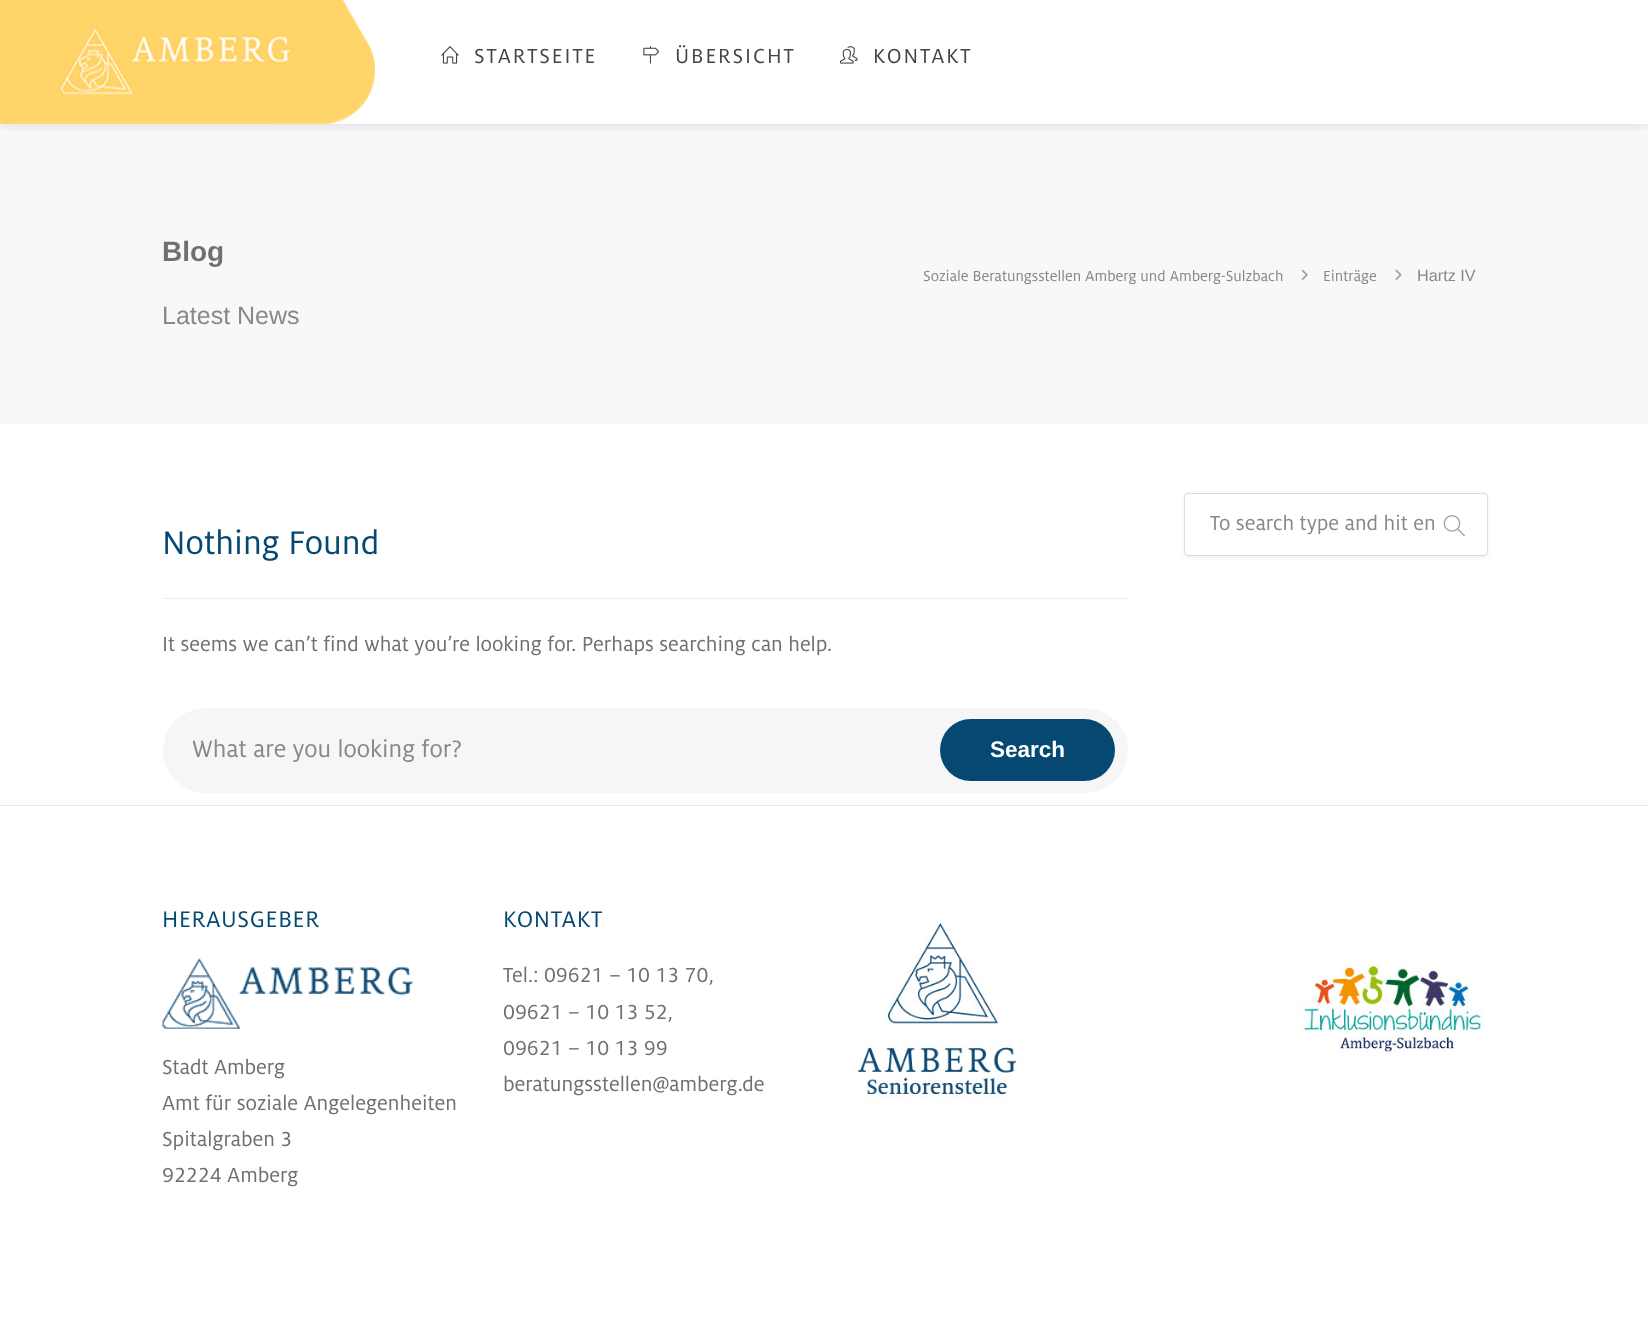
<svg xmlns="http://www.w3.org/2000/svg" xmlns:xlink="http://www.w3.org/1999/xlink" width="1648" height="1328" viewBox="0 0 1648 1328">
<style>
.cls-1{font:22.5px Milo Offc;letter-spacing:1.9px;fill:#444444}
.cls-2{font:bold 28px Liberation Sans;fill:#707070}
.cls-3{font:16.25px Milo Offc;fill:#888888}
.cls-4{font:16.25px Liberation Sans;fill:#888888}
.cls-5{font:25px Liberation Sans;fill:#888888}
.cls-6{font:22.5px Milo Offc;fill:#888888}
.cls-7{font:36.25px Milo Offc;fill:#054871}
.cls-8{font:22.5px Milo Offc;fill:#707070}
.cls-9{font:26.25px Milo Offc;fill:#888888}
.cls-10{font:bold 22.5px Liberation Sans;fill:#ffffff}
.cls-11{font:25px Milo Offc;letter-spacing:0.6px;fill:#054871}
</style>
<defs>
<clipPath id="clip1"><rect x="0" y="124" width="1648" height="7"/></clipPath>
<clipPath id="clip2"><rect x="193" y="734" width="728" height="31"/></clipPath>
</defs>
<rect width="100%" height="100%" fill="#ffffff"/>
<rect fill="#f8f8f8" x="0" y="124" width="1648" height="300"/>
<g clip-path="url(#clip1)">
<rect fill="#000000" fill-opacity="0.12" filter="blur(7.5px)" x="0" y="-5" width="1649" height="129"/>
</g>
<image xlink:href="image0.png" x="0" y="0" width="375" height="124"/>
<image xlink:href="image1.png" x="441" y="46" width="18" height="18"/>
<image xlink:href="image2.png" x="643" y="46" width="17" height="18"/>
<image xlink:href="image3.png" x="840" y="46" width="18" height="18"/>
<image xlink:href="image4.png" x="1301" y="269" width="7" height="11"/>
<image xlink:href="image5.png" x="1395" y="269" width="7" height="11"/>
<rect fill="#000000" fill-opacity="0.06" filter="blur(2px)" x="1184" y="494" width="304" height="64" rx="4"/>
<rect fill="#ffffff" stroke="#dbdbdb" x="1184.5" y="493.5" width="303" height="62" rx="3.5"/>
<image xlink:href="image6.png" x="1443" y="515" width="22" height="22"/>
<rect fill="#eeeeee" x="163" y="598" width="965" height="1"/>
<rect fill="#f6f6f6" x="163" y="708" width="965" height="85" rx="42.5"/>
<rect fill="#054871" x="940" y="719" width="175" height="62" rx="31"/>
<rect fill="#e8e8e8" x="0" y="805" width="1648" height="1"/>
<image xlink:href="image7.png" x="162" y="958" width="251" height="71"/>
<image xlink:href="image8.png" x="857" y="922" width="164" height="177"/>
<image xlink:href="image9.png" x="1299" y="963" width="184" height="89"/>
<text class="cls-1" x="474" y="63">STARTSEITE</text>
<text class="cls-1" x="675" y="63">ÜBERSICHT</text>
<text class="cls-1" x="873" y="63">KONTAKT</text>
<text class="cls-2" x="162" y="261">Blog</text>
<text class="cls-3" x="923" y="281">Soziale Beratungsstellen Amberg und Amberg-Sulzbach</text>
<text class="cls-3" x="1323" y="281">Einträge</text>
<text class="cls-4" x="1417" y="281">Hartz IV</text>
<text class="cls-5" x="162" y="324">Latest News</text>
<text class="cls-6" x="1210" y="530">To search type and hit en</text>
<text class="cls-7" x="162" y="554">Nothing Found</text>
<text class="cls-8" x="162" y="651">It seems we can’t find what you’re looking for. Perhaps searching can help.</text>
<g clip-path="url(#clip2)">
<text class="cls-9" x="192" y="757">What are you looking for?</text>
</g>
<text class="cls-10" x="990" y="757">Search</text>
<text class="cls-11" x="162" y="927">HERAUSGEBER</text>
<text class="cls-8"><tspan x="162" y="1074">Stadt Amberg</tspan><tspan x="162" y="1110">Amt für soziale Angelegenheiten</tspan><tspan x="162" y="1146">Spitalgraben 3</tspan><tspan x="162" y="1182">92224 Amberg</tspan></text>
<text class="cls-11" x="503" y="927">KONTAKT</text>
<text class="cls-8"><tspan x="503" y="982">Tel.: 09621 – 10 13 70,</tspan><tspan x="503" y="1019">09621 – 10 13 52,</tspan><tspan x="503" y="1055">09621 – 10 13 99</tspan><tspan x="503" y="1091">beratungsstellen@amberg.de</tspan></text>
</svg>
